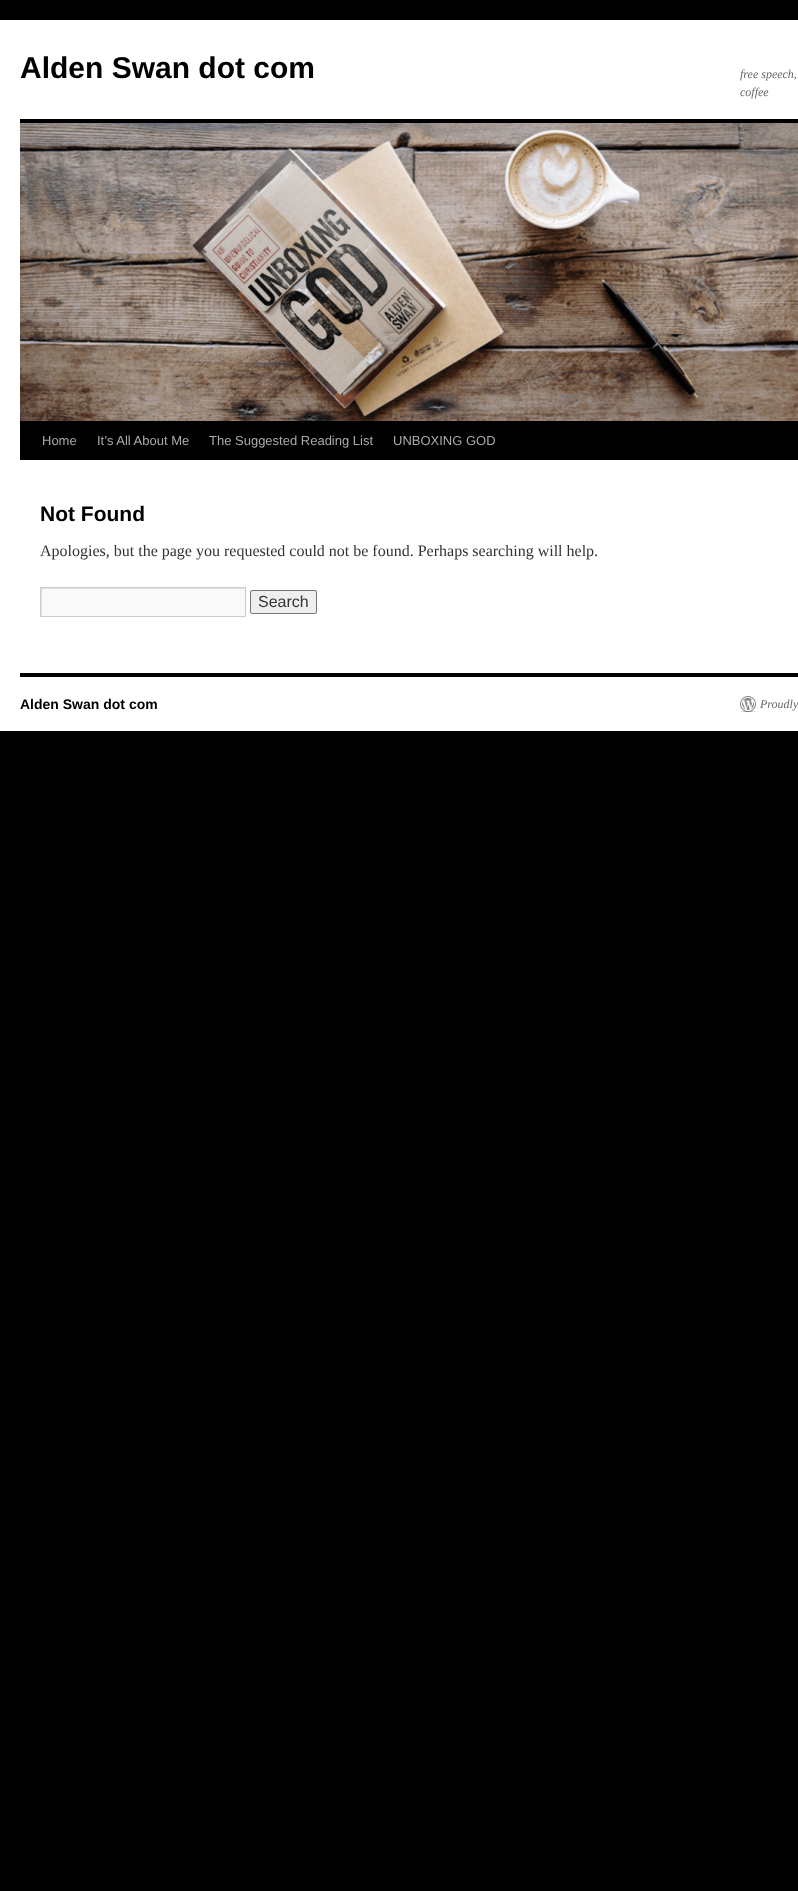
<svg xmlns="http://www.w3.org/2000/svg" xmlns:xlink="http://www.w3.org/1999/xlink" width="798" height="1891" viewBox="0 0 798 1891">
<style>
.cls-1{font:bold 30px Liberation Sans;fill:#000000}
.cls-2{font:italic 12px Liberation Serif;fill:#666666}
.cls-3{font:13px Liberation Sans;fill:#aaaaaa}
.cls-4{font:bold 21px Liberation Sans;fill:#000000}
.cls-5{font:16px Liberation Serif;fill:#333333}
.cls-6{font:16px Liberation Sans;fill:#333333}
.cls-7{font:bold 14px Liberation Sans;fill:#000000}
</style>
<defs>
<clipPath id="clip1"><rect x="41" y="588" width="204" height="28"/></clipPath>
</defs>
<rect width="100%" height="100%" fill="#000000"/>
<rect fill="#ffffff" x="0" y="20" width="798" height="711"/>
<rect fill="#000000" x="20" y="119" width="778" height="4"/>
<rect fill="#000000" x="20" y="421" width="778" height="39"/>
<image xlink:href="image0.png" x="20" y="123" width="778" height="298"/>
<rect fill="#f9f9f9" x="42" y="589" width="203" height="27"/>
<g clip-path="url(#clip1)">
<path fill="#e0e0e0" fill-rule="evenodd" d="M-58 489H344V715H-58ZM42 589H246V617H42Z"/>
</g>
<rect fill="none" stroke="#cccccc" x="40.5" y="587.5" width="205" height="29"/>
<rect fill="#efefef" stroke="#767676" x="250.5" y="590.5" width="66" height="23" rx="1.5"/>
<rect fill="#000000" x="20" y="673" width="778" height="4"/>
<image xlink:href="image1.png" x="740" y="696" width="16" height="16"/>
<text class="cls-1" x="20" y="78">Alden Swan dot com</text>
<text class="cls-2"><tspan x="740" y="78">free speech,</tspan><tspan x="740" y="96">coffee</tspan></text>
<text class="cls-3" x="42" y="445">Home</text>
<text class="cls-3" x="97" y="445">It’s All About Me</text>
<text class="cls-3" x="209" y="445">The Suggested Reading List</text>
<text class="cls-3" x="393" y="445">UNBOXING GOD</text>
<text class="cls-4" x="40" y="521">Not Found</text>
<text class="cls-5" x="40" y="556">Apologies, but the page you requested could not be found. Perhaps searching will help.</text>
<text class="cls-6" x="258" y="607">Search</text>
<text class="cls-7" x="20" y="709">Alden Swan dot com</text>
<text class="cls-2" x="760" y="708">Proudly</text>
</svg>
